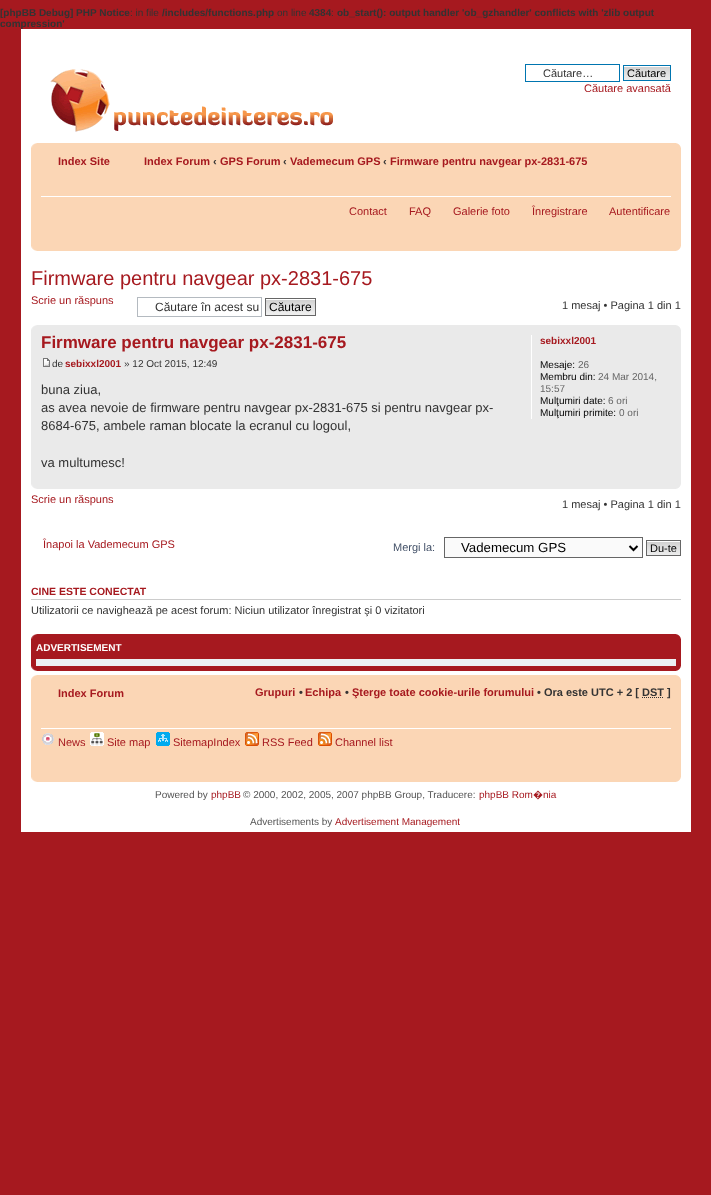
<svg xmlns="http://www.w3.org/2000/svg" xmlns:xlink="http://www.w3.org/1999/xlink" width="711" height="1195" viewBox="0 0 711 1195">
<style>
.cls-1{font:bold 10px Liberation Sans;fill:#333333}
.cls-2{font:10px Liberation Sans;fill:#333333}
.cls-3{font:11px Liberation Sans;fill:#333333}
.cls-4{font:11px Liberation Sans;fill:#000000}
.cls-5{font:11px Liberation Sans;fill:#a6191f}
.cls-6{font:bold 11px Liberation Sans;fill:#a6191f}
.cls-7{font:bold 11px Liberation Sans;fill:#333333}
.cls-8{font:20px Liberation Sans;fill:#a6191f}
.cls-9{font:12px Liberation Sans;fill:#333333}
.cls-10{font:12px Liberation Sans;fill:#000000}
.cls-11{font:bold 17px Liberation Sans;fill:#a6191f}
.cls-12{font:bold 10px Liberation Sans;fill:#a6191f}
.cls-13{font:13px Liberation Sans;fill:#333333}
.cls-14{font:10px Liberation Sans;fill:#000000}
.cls-15{font:10px Liberation Sans;fill:#666666}
.cls-16{font:11px Liberation Sans;fill:#425067}
.cls-17{font:13.25px Liberation Sans;fill:#000000}
.cls-18{font:bold 10.5px Liberation Sans;fill:#a6191f}
.cls-19{font:bold 10px Liberation Sans;fill:#ffffff}
.cls-20{font:10px Liberation Sans;fill:#555555}
.cls-21{font:10px Liberation Sans;fill:#a6191f}
.cls-22{font:10px Noto Sans;fill:#a6191f}
</style>
<rect width="100%" height="100%" fill="#a6191f"/>
<rect fill="#ffffff" x="21" y="29" width="670" height="803"/>
<image xlink:href="image0.png" x="50" y="69" width="283" height="63"/>
<rect fill="none" stroke="#0075b0" x="525.5" y="64.5" width="94" height="17"/>
<image xlink:href="image1.png" x="624" y="66" width="46" height="14"/>
<rect fill="none" stroke="#0075b0" x="623.5" y="65.5" width="47" height="15"/>
<rect fill="#fbd6b5" x="31" y="143" width="650" height="108"/>
<image xlink:href="image2.png" x="31" y="143" width="6" height="5"/>
<image xlink:href="image3.png" x="676" y="143" width="5" height="5"/>
<rect fill="#ffffff" x="41" y="196" width="630" height="1"/>
<image xlink:href="image4.png" x="31" y="246" width="6" height="5"/>
<image xlink:href="image5.png" x="676" y="246" width="5" height="5"/>
<rect fill="none" stroke="#b4bac0" x="137.5" y="297.5" width="124" height="19"/>
<image xlink:href="image6.png" x="266" y="299" width="49" height="16"/>
<rect fill="none" stroke="#666666" x="265.5" y="298.5" width="50" height="17"/>
<rect fill="#eaeaea" x="31" y="325" width="650" height="164"/>
<image xlink:href="image7.png" x="31" y="325" width="6" height="5"/>
<image xlink:href="image8.png" x="676" y="325" width="5" height="5"/>
<image xlink:href="image9.png" x="43" y="358" width="7" height="9"/>
<rect fill="#ffffff" x="531" y="335" width="1" height="84"/>
<image xlink:href="image10.png" x="31" y="484" width="6" height="5"/>
<image xlink:href="image11.png" x="676" y="484" width="5" height="5"/>
<rect fill="#fafafa" stroke="#666666" x="444.5" y="537.5" width="198" height="20"/>
<path fill="none" stroke="#000000" stroke-width="2" d="M629.5 546L633.5 550L637.5 546"/>
<image xlink:href="image12.png" x="647" y="541" width="33" height="14"/>
<rect fill="none" stroke="#666666" x="646.5" y="540.5" width="34" height="15"/>
<rect fill="#cccccc" x="31" y="599" width="650" height="1"/>
<rect fill="#a6191f" x="31" y="634" width="650" height="37"/>
<image xlink:href="image13.png" x="31" y="634" width="7" height="5"/>
<image xlink:href="image14.png" x="675" y="634" width="6" height="5"/>
<rect fill="#ecf1f3" x="36" y="659" width="640" height="7"/>
<image xlink:href="image15.png" x="31" y="666" width="6" height="5"/>
<image xlink:href="image16.png" x="676" y="666" width="5" height="5"/>
<rect fill="#fbd6b5" x="31" y="675" width="650" height="107"/>
<image xlink:href="image2.png" x="31" y="675" width="6" height="5"/>
<image xlink:href="image3.png" x="676" y="675" width="5" height="5"/>
<rect fill="#ffffff" x="41" y="728" width="630" height="1"/>
<path fill="none" stroke="#333333" stroke-dasharray="1 1" d="M642 697.5H664"/>
<image xlink:href="image17.png" x="42" y="733" width="12" height="12"/>
<image xlink:href="image18.png" x="90" y="732" width="14" height="14"/>
<image xlink:href="image19.png" x="156" y="732" width="14" height="14"/>
<image xlink:href="image20.png" x="245" y="732" width="14" height="14"/>
<image xlink:href="image20.png" x="318" y="732" width="14" height="14"/>
<image xlink:href="image4.png" x="31" y="777" width="6" height="5"/>
<image xlink:href="image5.png" x="676" y="777" width="5" height="5"/>
<text class="cls-1" x="0" y="16">[phpBB Debug] PHP Notice</text>
<text class="cls-2" x="130" y="16">: in file</text>
<text class="cls-1" x="162" y="16">/includes/functions.php</text>
<text class="cls-2" x="277" y="16">on line</text>
<text class="cls-1" x="309" y="16">4384</text>
<text class="cls-2" x="331" y="16">:</text>
<text class="cls-1" x="337" y="16">ob_start(): output handler 'ob_gzhandler' conflicts with 'zlib output</text>
<text class="cls-1" x="0" y="27">compression'</text>
<text class="cls-3" x="543" y="77">Căutare…</text>
<text class="cls-4" x="627" y="77">Căutare</text>
<text class="cls-5" x="584" y="92">Căutare avansată</text>
<text class="cls-6" x="58" y="165">Index Site</text>
<text class="cls-6" x="144" y="165">Index Forum</text>
<text class="cls-7" x="213" y="165">‹</text>
<text class="cls-6" x="220" y="165">GPS Forum</text>
<text class="cls-7" x="283" y="165">‹</text>
<text class="cls-6" x="290" y="165">Vademecum GPS</text>
<text class="cls-7" x="383" y="165">‹</text>
<text class="cls-6" x="390" y="165">Firmware pentru navgear px-2831-675</text>
<text class="cls-5" x="349" y="215">Contact</text>
<text class="cls-5" x="409" y="215">FAQ</text>
<text class="cls-5" x="453" y="215">Galerie foto</text>
<text class="cls-5" x="532" y="215">Înregistrare</text>
<text class="cls-5" x="609" y="215">Autentificare</text>
<text class="cls-8" x="31" y="285">Firmware pentru navgear px-2831-675</text>
<text class="cls-5" x="31" y="304">Scrie un răspuns</text>
<text class="cls-9" x="155" y="311">Căutare în acest su</text>
<text class="cls-10" x="269" y="311">Căutare</text>
<text class="cls-3" x="562" y="309">1 mesaj • Pagina 1 din 1</text>
<text class="cls-11" x="41" y="348">Firmware pentru navgear px-2831-675</text>
<text class="cls-2" x="52" y="367">de</text>
<text class="cls-12" x="65" y="367">sebixxl2001</text>
<text class="cls-2" x="124" y="367">» 12 Oct 2015, 12:49</text>
<text class="cls-13"><tspan x="41" y="394">buna ziua,</tspan><tspan x="41" y="412">as avea nevoie de firmware pentru navgear px-2831-675 si pentru navgear px-</tspan><tspan x="41" y="430">8684-675, ambele raman blocate la ecranul cu logoul,</tspan></text>
<text class="cls-13" x="41" y="467">va multumesc!</text>
<text class="cls-12" x="540" y="344">sebixxl2001</text>
<text class="cls-14" x="540" y="368">Mesaje:</text>
<text class="cls-15" x="578" y="368">26</text>
<text class="cls-14" x="540" y="380">Membru din:</text>
<text class="cls-15" x="598" y="380">24 Mar 2014,</text>
<text class="cls-15" x="540" y="392">15:57</text>
<text class="cls-14" x="540" y="404">Mulţumiri date:</text>
<text class="cls-15" x="608" y="404">6 ori</text>
<text class="cls-14" x="540" y="416">Mulţumiri primite:</text>
<text class="cls-15" x="619" y="416">0 ori</text>
<text class="cls-5" x="31" y="503">Scrie un răspuns</text>
<text class="cls-3" x="562" y="508">1 mesaj • Pagina 1 din 1</text>
<text class="cls-5" x="43" y="548">Înapoi la Vademecum GPS</text>
<text class="cls-16" x="393" y="551">Mergi la:</text>
<text class="cls-17" x="461" y="552">Vademecum GPS</text>
<text class="cls-4" x="650" y="552">Du-te</text>
<text class="cls-18" x="31" y="595">CINE ESTE CONECTAT</text>
<text class="cls-3" x="31" y="614">Utilizatorii ce navighează pe acest forum: Niciun utilizator înregistrat şi 0 vizitatori</text>
<text class="cls-19" x="36" y="651">ADVERTISEMENT</text>
<text class="cls-6" x="58" y="697">Index Forum</text>
<text class="cls-6" x="255" y="696">Grupuri</text>
<text class="cls-7" x="299" y="696">•</text>
<text class="cls-6" x="305" y="696">Echipa</text>
<text class="cls-7" x="345" y="696">•</text>
<text class="cls-6" x="352" y="696">Şterge toate cookie-urile forumului</text>
<text class="cls-7" x="537" y="696">• Ora este UTC + 2 [ DST ]</text>
<text class="cls-5" x="58" y="746">News</text>
<text class="cls-5" x="107" y="746">Site map</text>
<text class="cls-5" x="173" y="746">SitemapIndex</text>
<text class="cls-5" x="262" y="746">RSS Feed</text>
<text class="cls-5" x="335" y="746">Channel list</text>
<text class="cls-20" x="155" y="798">Powered by</text>
<text class="cls-21" x="211" y="798">phpBB</text>
<text class="cls-20" x="243" y="798">© 2000, 2002, 2005, 2007 phpBB Group, Traducere:</text>
<text class="cls-21" x="479" y="798">phpBB Rom</text>
<text class="cls-22" x="533" y="798">�</text>
<text class="cls-21" x="543" y="798">nia</text>
<text class="cls-20" x="250" y="825">Advertisements by</text>
<text class="cls-21" x="335" y="825">Advertisement Management</text>
</svg>
